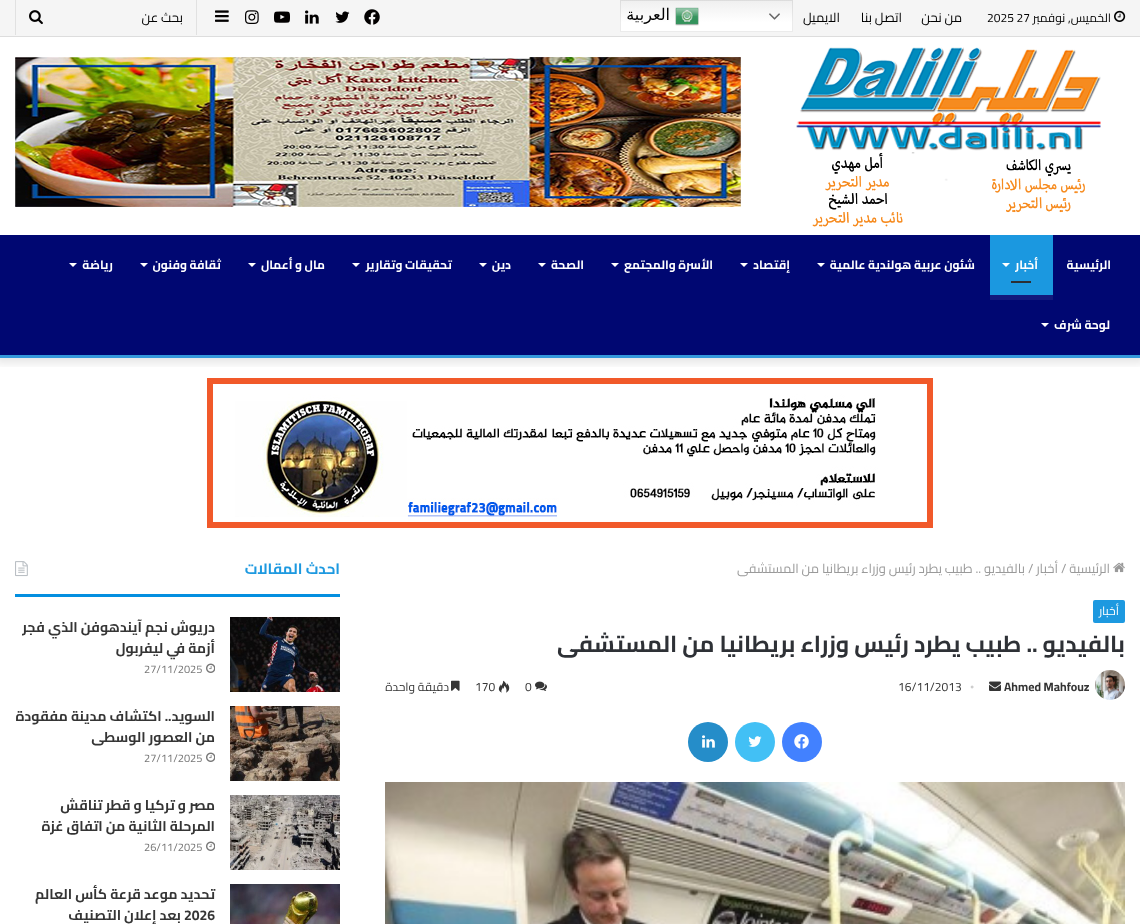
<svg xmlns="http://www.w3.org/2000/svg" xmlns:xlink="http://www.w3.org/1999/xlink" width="1140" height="924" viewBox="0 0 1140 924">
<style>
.cls-1{font:12px Cairo;direction:rtl;fill:#020202}
.cls-2{font:12px Cairo;fill:#020202}
.cls-3{font:13px Cairo;direction:rtl;fill:#020202}
.cls-4{font:16px DejaVu Sans;direction:rtl;fill:#020202}
.cls-5{font:bold 12px Cairo;direction:rtl;fill:#ffffff}
.cls-6{font:13px Cairo;direction:rtl;fill:#9a9a9a}
.cls-7{font:13px Cairo;fill:#9a9a9a}
.cls-8{font:12px Cairo;direction:rtl;fill:#ffffff}
.cls-9{font:bold 23px Cairo;direction:rtl;fill:#2e3136}
.cls-10{font:bold 12px Cairo;fill:#353535}
.cls-11{font:12px Liberation Serif;fill:#cdcdcd}
.cls-12{font:12px Cairo;fill:#353535}
.cls-13{font:12px Cairo;direction:rtl;fill:#353535}
.cls-14{font:bold 15px Cairo;direction:rtl;fill:#1d99e0}
.cls-15{font:bold 14px Cairo;direction:rtl;fill:#353535}
.cls-16{font:11px Cairo;fill:#777777}
.cls-17{font:bold 14px Cairo;fill:#353535}
</style>
<defs>
<clipPath id="clip1"><rect x="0" y="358" width="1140" height="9"/></clipPath>
<linearGradient id="g1" gradientUnits="userSpaceOnUse" x1="707" y1="0" x2="707" y2="32"><stop offset="0" stop-color="#efefef"/><stop offset="0.7" stop-color="#ffffff"/></linearGradient>
</defs>
<rect width="100%" height="100%" fill="#ffffff"/>
<image xlink:href="image12.png" x="207" y="378" width="726" height="150"/>
<g clip-path="url(#clip1)">
<rect fill="#000000" fill-opacity="0.1" filter="blur(5px)" x="-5" y="-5" width="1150" height="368"/>
</g>
<rect fill="#f5f5f5" x="0" y="0" width="1140" height="36"/>
<rect fill="#dddddd" x="0" y="36" width="1140" height="1"/>
<image xlink:href="image0.png" x="1114" y="10" width="12" height="12"/>
<rect fill="url(#g1)" x="620" y="0" width="173" height="32"/>
<rect fill="none" stroke="#000000" stroke-opacity="0.08" x="620.5" y="0.5" width="172" height="31"/>
<image xlink:href="image1.png" x="769" y="13" width="11" height="7"/>
<image xlink:href="image2.png" x="675" y="7" width="24" height="19"/>
<image xlink:href="image3.png" x="364" y="9" width="16" height="16"/>
<image xlink:href="image4.png" x="335" y="11" width="15" height="12"/>
<image xlink:href="image5.png" x="305" y="10" width="14" height="14"/>
<image xlink:href="image6.png" x="274" y="11" width="16" height="12"/>
<image xlink:href="image7.png" x="245" y="10" width="14" height="14"/>
<image xlink:href="image8.png" x="215" y="10" width="14" height="12"/>
<rect fill="#e1e1e1" x="196" y="0" width="1" height="35"/>
<rect fill="#e1e1e1" x="15" y="0" width="1" height="35"/>
<image xlink:href="image9.png" x="29" y="10" width="14" height="15"/>
<image xlink:href="image10.png" x="796" y="47" width="305" height="180"/>
<image xlink:href="image11.png" x="15" y="57" width="726" height="150"/>
<rect fill="#000772" x="0" y="235" width="1140" height="120"/>
<rect fill="#3498db" x="0" y="355" width="1140" height="3"/>
<rect fill="#12187c" x="990" y="295" width="63" height="5"/>
<rect fill="#1b98e0" x="990" y="235" width="63" height="60"/>
<path fill="#ffffff" d="M1002 263H1010L1006 267Z"/>
<rect fill="#2c2f34" x="1011" y="281" width="20" height="2"/>
<path fill="#ffffff" d="M817 263H825L821 267Z"/>
<path fill="#ffffff" d="M740 263H748L744 267Z"/>
<path fill="#ffffff" d="M611 263H619L615 267Z"/>
<path fill="#ffffff" d="M538 263H546L542 267Z"/>
<path fill="#ffffff" d="M479 263H487L483 267Z"/>
<path fill="#ffffff" d="M352 263H360L356 267Z"/>
<path fill="#ffffff" d="M248 263H256L252 267Z"/>
<path fill="#ffffff" d="M140 263H148L144 267Z"/>
<path fill="#ffffff" d="M69 263H77L73 267Z"/>
<path fill="#ffffff" d="M1041 323H1049L1045 327Z"/>
<image xlink:href="image13.png" x="1113" y="562" width="12" height="11"/>
<rect fill="#1d99e0" x="1093" y="600" width="32" height="23" rx="2"/>
<image xlink:href="image14.png" x="1095" y="670" width="30" height="30"/>
<image xlink:href="image15.png" x="989" y="681" width="12" height="10"/>
<image xlink:href="image16.png" x="535" y="681" width="12" height="10"/>
<image xlink:href="image17.png" x="498" y="680" width="12" height="13"/>
<image xlink:href="image18.png" x="451" y="680" width="9" height="11"/>
<circle fill="#4281ff" cx="802" cy="742" r="20"/>
<image xlink:href="image19.png" x="794" y="734" width="15" height="15"/>
<circle fill="#42c0f5" cx="755" cy="742" r="20"/>
<image xlink:href="image20.png" x="748" y="736" width="14" height="11"/>
<circle fill="#258dc9" cx="708" cy="742" r="20"/>
<image xlink:href="image21.png" x="702" y="735" width="13" height="13"/>
<image xlink:href="image22.png" x="385" y="782" width="740" height="142"/>
<rect fill="#038fe0" x="15" y="594" width="325" height="3"/>
<image xlink:href="image23.png" x="15" y="561" width="13" height="16"/>
<image xlink:href="image24.png" x="230" y="617" width="110" height="75"/>
<image xlink:href="image25.png" x="206" y="663" width="9" height="10"/>
<image xlink:href="image26.png" x="230" y="706" width="110" height="75"/>
<image xlink:href="image25.png" x="206" y="752" width="9" height="10"/>
<image xlink:href="image27.png" x="230" y="795" width="110" height="75"/>
<image xlink:href="image25.png" x="206" y="841" width="9" height="10"/>
<image xlink:href="image28.png" x="230" y="884" width="110" height="40"/>
<text class="cls-1" x="1111" y="22">الخميس, نوفمبر</text>
<text class="cls-2" x="987" y="22">2025 27</text>
<text class="cls-3" x="962" y="22">من نحن</text>
<text class="cls-3" x="902" y="22">اتصل بنا</text>
<text class="cls-3" x="840" y="22">الايميل</text>
<text class="cls-4" x="670" y="20">العربية</text>
<text class="cls-3" x="183" y="22">بحث عن</text>
<text class="cls-5" x="1111" y="269">الرئيسية</text>
<text class="cls-5" x="1038" y="269">أخبار</text>
<text class="cls-5" x="975" y="269">شئون عربية هولندية عالمية</text>
<text class="cls-5" x="790" y="269">إقتصاد</text>
<text class="cls-5" x="713" y="269">الأسرة والمجتمع</text>
<text class="cls-5" x="584" y="269">الصحة</text>
<text class="cls-5" x="511" y="269">دين</text>
<text class="cls-5" x="452" y="269">تحقيقات وتقارير</text>
<text class="cls-5" x="325" y="269">مال و أعمال</text>
<text class="cls-5" x="221" y="269">ثقافة وفنون</text>
<text class="cls-5" x="113" y="269">رياضة</text>
<text class="cls-5" x="1110" y="329">لوحة شرف</text>
<text class="cls-6" x="1110" y="573">الرئيسية</text>
<text class="cls-7" x="1061" y="573">/</text>
<text class="cls-6" x="1058" y="573">أخبار</text>
<text class="cls-7" x="1028" y="573">/</text>
<text class="cls-6" x="1025" y="573">بالفيديو .. طبيب يطرد رئيس وزراء بريطانيا من المستشفى</text>
<text class="cls-8" x="1119" y="615">أخبار</text>
<text class="cls-9" x="1125" y="652">بالفيديو .. طبيب يطرد رئيس وزراء بريطانيا من المستشفى</text>
<text class="cls-10" x="1004" y="691">Ahmed Mahfouz</text>
<text class="cls-11" x="970" y="691">•</text>
<text class="cls-12" x="898" y="691">16/11/2013</text>
<text class="cls-12" x="525" y="691">0</text>
<text class="cls-12" x="475" y="691">170</text>
<text class="cls-13" x="449" y="691">دقيقة واحدة</text>
<text class="cls-14" x="340" y="574">احدث المقالات</text>
<text class="cls-15"><tspan x="215" y="632">دريوش نجم آيندهوفن الذي فجر</tspan><tspan x="215" y="653">أزمة في ليفربول</tspan></text>
<text class="cls-16" x="144" y="673">27/11/2025</text>
<text class="cls-15"><tspan x="215" y="721">السويد.. اكتشاف مدينة مفقودة</tspan><tspan x="215" y="742">من العصور الوسطى</tspan></text>
<text class="cls-16" x="144" y="762">27/11/2025</text>
<text class="cls-15"><tspan x="215" y="810">مصر و تركيا و قطر تناقش</tspan><tspan x="215" y="831">المرحلة الثانية من اتفاق غزة</tspan></text>
<text class="cls-16" x="144" y="851">26/11/2025</text>
<text class="cls-15" x="215" y="899">تحديد موعد قرعة كأس العالم</text>
<text class="cls-17" x="184" y="920">2026</text>
<text class="cls-15" x="181" y="920">بعد إعلان التصنيف</text>
</svg>
